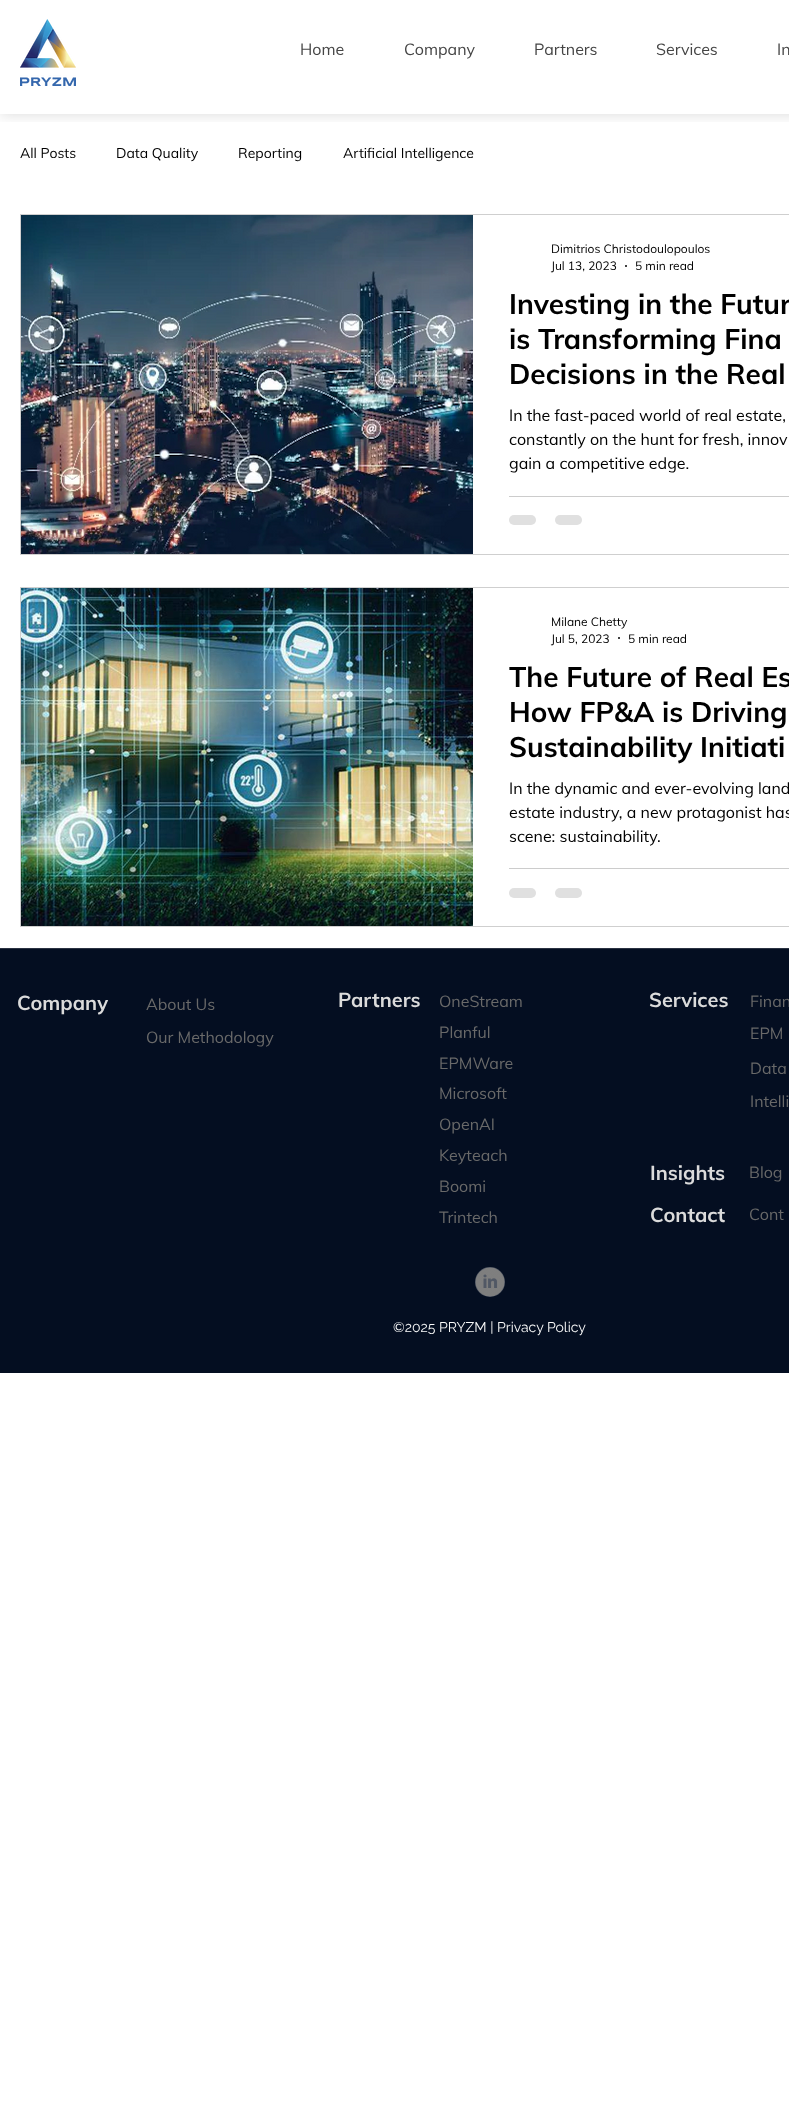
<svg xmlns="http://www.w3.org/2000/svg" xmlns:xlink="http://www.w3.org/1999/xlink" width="789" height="2105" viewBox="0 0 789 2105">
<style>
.cls-1{font:16px Muli;fill:#454545}
.cls-2{font:14px Muli;fill:#000000}
.cls-3{font:12px Muli;fill:#000000}
.cls-4{font:bold 28px Muli;fill:#000000}
.cls-5{font:16px Muli;fill:#000000}
.cls-6{font:bold 20px Muli;fill:#dbdbdb}
.cls-7{font:16px Muli;fill:#696969}
.cls-8{font:14px Raleway;fill:#fafafa}
</style>
<defs>
<clipPath id="clip1"><rect x="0" y="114" width="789" height="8"/></clipPath>
</defs>
<rect width="100%" height="100%" fill="#ffffff"/>
<g clip-path="url(#clip1)">
<rect fill="#000000" fill-opacity="0.15" filter="blur(7.5px)" x="0" y="0" width="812" height="114"/>
</g>
<image xlink:href="image0.png" x="20" y="19" width="56" height="67"/>
<rect fill="none" stroke="#cfcfcf" x="20.5" y="214.5" width="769" height="340"/>
<image xlink:href="image1.png" x="21" y="215" width="452" height="339"/>
<circle fill="#000000" cx="626" cy="266" r="1"/>
<rect fill="#cccccc" x="509" y="496" width="280" height="1"/>
<rect fill="#e0e0e0" x="509" y="515" width="27" height="10" rx="5"/>
<rect fill="#e0e0e0" x="555" y="515" width="27" height="10" rx="5"/>
<rect fill="none" stroke="#cfcfcf" x="20.5" y="587.5" width="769" height="339"/>
<image xlink:href="image2.png" x="21" y="588" width="452" height="338"/>
<circle fill="#000000" cx="619" cy="638" r="1"/>
<rect fill="#cccccc" x="509" y="868" width="280" height="1"/>
<rect fill="#e0e0e0" x="509" y="888" width="27" height="10" rx="5"/>
<rect fill="#e0e0e0" x="555" y="888" width="27" height="10" rx="5"/>
<rect fill="#040e21" x="0" y="949" width="789" height="424"/>
<rect fill="#2a3242" x="0" y="948" width="789" height="1"/>
<image xlink:href="image3.png" x="475" y="1267" width="30" height="30"/>
<text class="cls-1" x="300" y="55">Home</text>
<text class="cls-1" x="404" y="55">Company</text>
<text class="cls-1" x="534" y="55">Partners</text>
<text class="cls-1" x="656" y="55">Services</text>
<text class="cls-1" x="777" y="55">In</text>
<text class="cls-2" x="20" y="158">All Posts</text>
<text class="cls-2" x="116" y="158">Data Quality</text>
<text class="cls-2" x="238" y="158">Reporting</text>
<text class="cls-2" x="343" y="158">Artificial Intelligence</text>
<text class="cls-3"><tspan x="551" y="253">Dimitrios Christodoulopoulos</tspan><tspan x="551" y="270">Jul 13, 2023</tspan></text>
<text class="cls-3" x="635" y="270">5 min read</text>
<text class="cls-4"><tspan x="509" y="314">Investing in the Futur</tspan><tspan x="509" y="349">is Transforming Fina</tspan><tspan x="509" y="384">Decisions in the Real</tspan></text>
<text class="cls-5"><tspan x="509" y="421">In the fast-paced world of real estate,</tspan><tspan x="509" y="445">constantly on the hunt for fresh, innov</tspan><tspan x="509" y="469">gain a competitive edge.</tspan></text>
<text class="cls-3"><tspan x="551" y="626">Milane Chetty</tspan><tspan x="551" y="643">Jul 5, 2023</tspan></text>
<text class="cls-3" x="628" y="643">5 min read</text>
<text class="cls-4"><tspan x="509" y="687">The Future of Real Es</tspan><tspan x="509" y="722">How FP&amp;A is Driving</tspan><tspan x="509" y="757">Sustainability Initiati</tspan></text>
<text class="cls-5"><tspan x="509" y="794">In the dynamic and ever-evolving land</tspan><tspan x="509" y="818">estate industry, a new protagonist has</tspan><tspan x="509" y="842">scene: sustainability.</tspan></text>
<text class="cls-6" x="17" y="1010">Company</text>
<text class="cls-7" x="146" y="1010">About Us</text>
<text class="cls-6" x="338" y="1007">Partners</text>
<text class="cls-7" x="439" y="1007">OneStream</text>
<text class="cls-6" x="649" y="1007">Services</text>
<text class="cls-7" x="750" y="1007">Finan</text>
<text class="cls-7" x="146" y="1043">Our Methodology</text>
<text class="cls-7" x="439" y="1038">Planful</text>
<text class="cls-7" x="750" y="1039">EPM</text>
<text class="cls-7" x="439" y="1069">EPMWare</text>
<text class="cls-7" x="750" y="1074">Data</text>
<text class="cls-7" x="439" y="1099">Microsoft</text>
<text class="cls-7" x="750" y="1107">Intelli</text>
<text class="cls-7"><tspan x="439" y="1130">OpenAI</tspan><tspan x="439" y="1161">Keyteach</tspan></text>
<text class="cls-6" x="650" y="1180">Insights</text>
<text class="cls-7" x="749" y="1178">Blog</text>
<text class="cls-7"><tspan x="439" y="1192">Boomi</tspan><tspan x="439" y="1223">Trintech</tspan></text>
<text class="cls-6" x="650" y="1222">Contact</text>
<text class="cls-7" x="749" y="1220">Cont</text>
<text class="cls-8" x="393" y="1332">©2025 PRYZM | Privacy Policy</text>
</svg>
